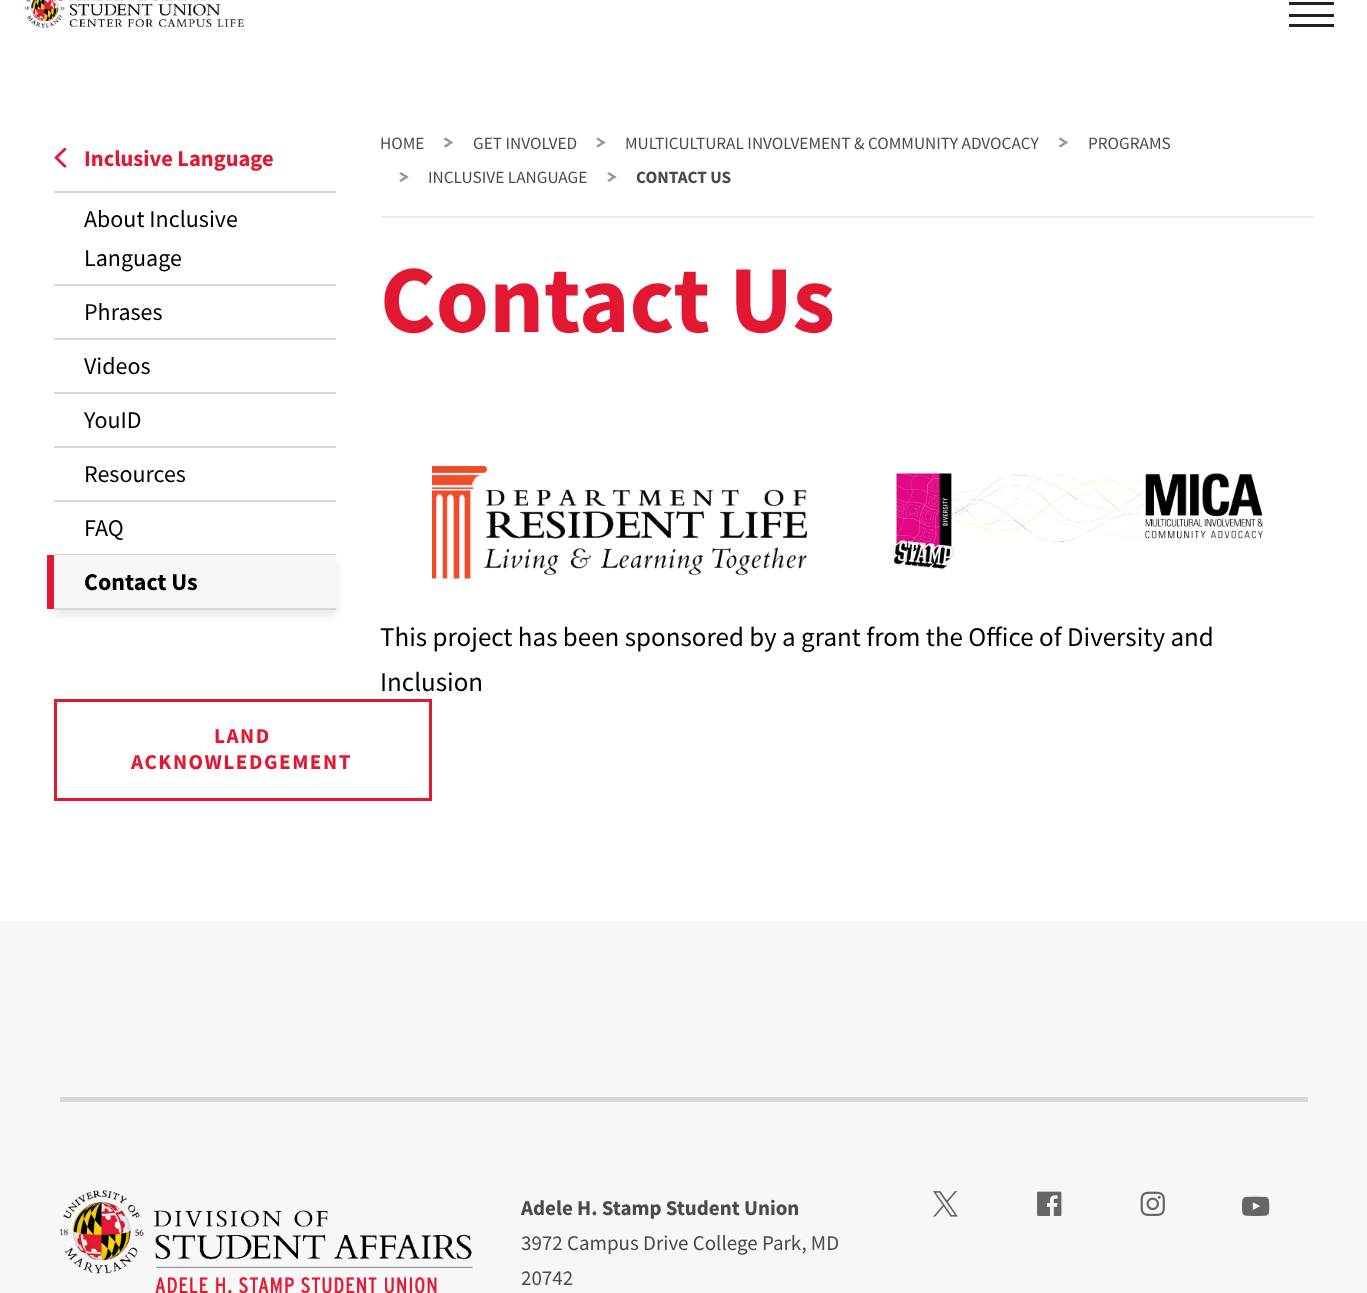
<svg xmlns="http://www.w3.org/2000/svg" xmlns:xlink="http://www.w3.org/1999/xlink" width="1367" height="1293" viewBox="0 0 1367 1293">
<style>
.cls-1{font:bold 22.5px Source Sans Pro;fill:#e21833}
.cls-2{font:24px Source Sans Pro;fill:#000000}
.cls-3{font:bold 24px Source Sans Pro;fill:#000000}
.cls-4{font:bold 21.25px Source Sans Pro;letter-spacing:1.5px;fill:#e21833}
.cls-5{font:17.3px Source Sans Pro;fill:#4a4a4a}
.cls-6{font:bold 17.3px Source Sans Pro;fill:#4a4a4a}
.cls-7{font:bold 96px Source Sans Pro;fill:#e21833}
.cls-8{font:27px Source Sans Pro;fill:#000000}
.cls-9{font:bold 21px Source Sans Pro;fill:#4a4a4a}
.cls-10{font:21px Source Sans Pro;fill:#4a4a4a}
</style>
<rect width="100%" height="100%" fill="#ffffff"/>
<image xlink:href="image0.png" x="24" y="0" width="220" height="28"/>
<rect fill="#222222" x="1289" y="2" width="45" height="3"/>
<rect fill="#222222" x="1289" y="14" width="45" height="3"/>
<rect fill="#222222" x="1289" y="24" width="45" height="3"/>
<rect fill="#d8d8d8" x="54" y="191" width="282" height="2"/>
<image xlink:href="image1.png" x="54" y="147" width="13" height="21"/>
<rect fill="#d8d8d8" x="54" y="284" width="282" height="2"/>
<rect fill="#d8d8d8" x="54" y="338" width="282" height="2"/>
<rect fill="#d8d8d8" x="54" y="392" width="282" height="2"/>
<rect fill="#d8d8d8" x="54" y="446" width="282" height="2"/>
<rect fill="#d8d8d8" x="54" y="500" width="282" height="2"/>
<rect fill="#d8d8d8" x="54" y="554" width="282" height="1"/>
<rect fill="#000000" fill-opacity="0.1" filter="blur(4px)" x="54" y="561" width="282" height="54"/>
<rect fill="#f7f7f7" x="54" y="555" width="282" height="53"/>
<rect fill="#d8d8d8" x="54" y="608" width="282" height="2"/>
<rect fill="#e21833" x="47" y="555" width="7" height="54"/>
<rect fill="none" stroke="#e21833" stroke-width="3" x="55.5" y="700.5" width="375" height="99"/>
<rect fill="#ededed" x="381" y="216" width="933" height="2"/>
<path fill="#979797" d="M443.5 139L446 137.5L453 142.5L451 144Z"/>
<path fill="#979797" d="M443.5 146L451 141L453 142.5L446 147.5Z"/>
<path fill="#979797" d="M596 139L598 137.5L605.5 142.5L603.5 144Z"/>
<path fill="#979797" d="M596 146L603.5 141L605.5 142.5L598 147.5Z"/>
<path fill="#979797" d="M1058.5 139L1060.5 137.5L1068 142.5L1066 144Z"/>
<path fill="#979797" d="M1058.5 146L1066 141L1068 142.5L1060.5 147.5Z"/>
<path fill="#979797" d="M399 173.5L401 172L408.5 177L406.5 178.5Z"/>
<path fill="#979797" d="M399 180.5L406.5 175.5L408.5 177L401 182Z"/>
<path fill="#979797" d="M607 173.5L609 172L616.5 177L614 178.5Z"/>
<path fill="#979797" d="M607 180.5L614 175.5L616.5 177L609 182Z"/>
<image xlink:href="image2.png" x="432" y="466" width="375" height="113"/>
<image xlink:href="image3.png" x="888" y="473" width="375" height="97"/>
<rect fill="#f7f7f7" x="0" y="921" width="1367" height="372"/>
<rect fill="#d8d8d8" x="60" y="1097" width="1248" height="5"/>
<image xlink:href="image4.png" x="60" y="1190" width="413" height="103"/>
<image xlink:href="image5.png" x="933" y="1191" width="25" height="26"/>
<image xlink:href="image6.png" x="1037" y="1191" width="25" height="25"/>
<image xlink:href="image7.png" x="1140" y="1191" width="25" height="25"/>
<image xlink:href="image8.png" x="1242" y="1196" width="28" height="20"/>
<text class="cls-1" x="84" y="166">Inclusive Language</text>
<text class="cls-2"><tspan x="84" y="227">About Inclusive</tspan><tspan x="84" y="266">Language</tspan></text>
<text class="cls-2" x="84" y="320">Phrases</text>
<text class="cls-2" x="84" y="374">Videos</text>
<text class="cls-2" x="84" y="428">YouID</text>
<text class="cls-2" x="84" y="482">Resources</text>
<text class="cls-2" x="84" y="536">FAQ</text>
<text class="cls-3" x="84" y="590">Contact Us</text>
<text class="cls-4" x="214" y="743">LAND</text>
<text class="cls-4" x="131" y="769">ACKNOWLEDGEMENT</text>
<text class="cls-5" x="380" y="149">HOME</text>
<text class="cls-5" x="473" y="149">GET INVOLVED</text>
<text class="cls-5" x="625" y="149">MULTICULTURAL INVOLVEMENT &amp; COMMUNITY ADVOCACY</text>
<text class="cls-5" x="1088" y="149">PROGRAMS</text>
<text class="cls-5" x="428" y="183">INCLUSIVE LANGUAGE</text>
<text class="cls-6" x="636" y="183">CONTACT US</text>
<text class="cls-7" x="380" y="332">Contact Us</text>
<text class="cls-8"><tspan x="380" y="646">This project has been sponsored by a grant from the Office of Diversity and</tspan><tspan x="380" y="691">Inclusion</tspan></text>
<text class="cls-9" x="521" y="1215">Adele H. Stamp Student Union</text>
<text class="cls-10"><tspan x="521" y="1250">3972 Campus Drive College Park, MD</tspan><tspan x="521" y="1285">20742</tspan></text>
</svg>
